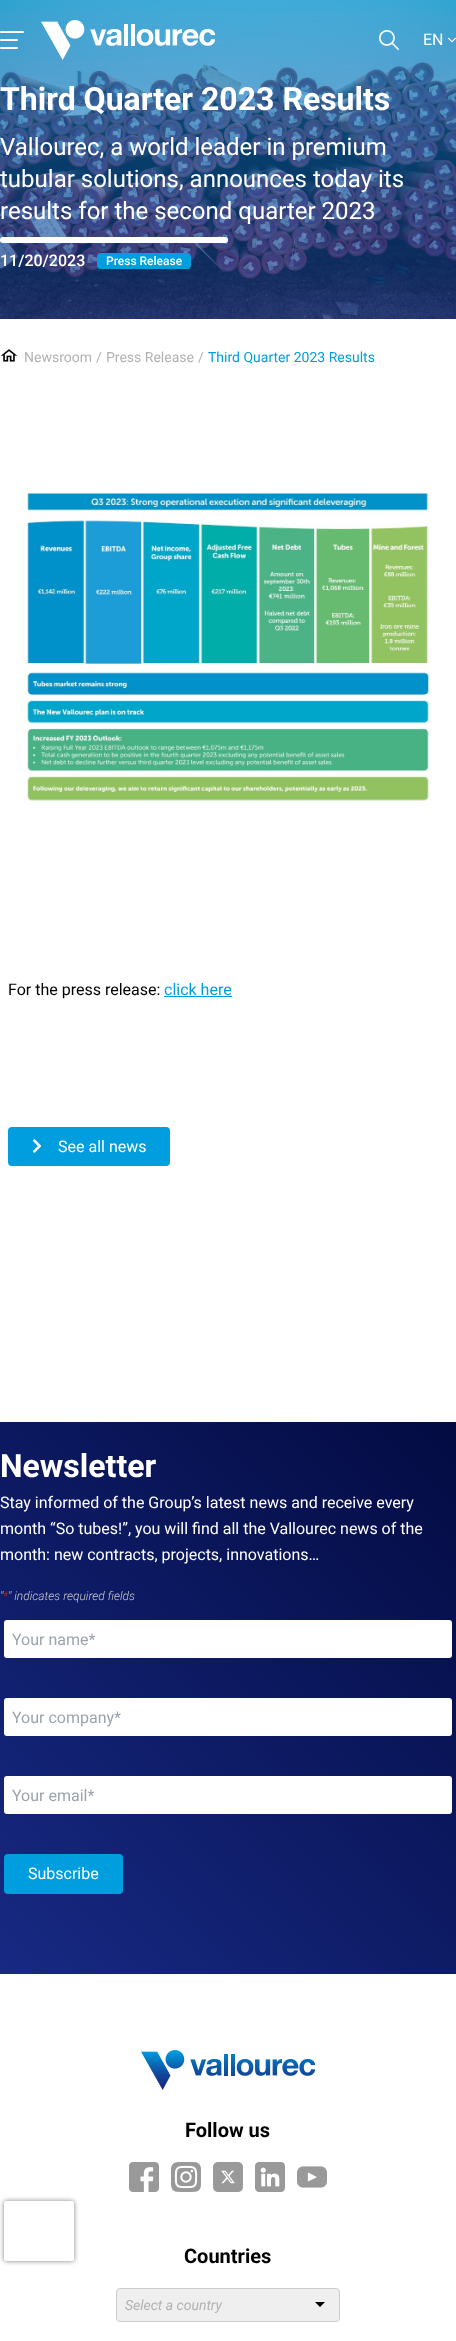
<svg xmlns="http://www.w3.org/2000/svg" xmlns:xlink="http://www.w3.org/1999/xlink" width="456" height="2341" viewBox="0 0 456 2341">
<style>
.cls-1{font:16px Roboto;fill:#ffffff}
.cls-2{font:bold 32px Roboto;fill:#ffffff}
.cls-3{font:24px Roboto;fill:#ffffff}
.cls-4{font:500 16px Roboto;fill:#ffffff}
.cls-5{font:500 12px Roboto;fill:#ffffff}
.cls-6{font:14px Roboto;fill:#b2b2b2}
.cls-7{font:14px Roboto;fill:#009ede}
.cls-8{font:16px Roboto;fill:#000000}
.cls-9{font:16px Roboto;fill:#009ede}
.cls-10{font:italic 300 12px Roboto;fill:#cccccc}
.cls-11{font:italic 300 12px Roboto;fill:#c02b0a}
.cls-12{font:16px Roboto;fill:#9ca3af}
.cls-13{font:bold 20px Roboto;fill:#000000}
.cls-14{font:italic 14px Roboto;fill:#b2b2b2}
</style>
<defs>
<linearGradient id="g1" gradientUnits="userSpaceOnUse" x1="-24" y1="1950" x2="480" y2="1446"><stop offset="0" stop-color="#172983"/><stop offset="1" stop-color="#030b42"/></linearGradient>
<clipPath id="clip1"><path d="M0 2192H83V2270H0ZM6 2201H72C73 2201 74 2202 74 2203V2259C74 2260 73 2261 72 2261H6C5 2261 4 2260 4 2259V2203C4 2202 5 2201 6 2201Z" clip-rule="evenodd"/></clipPath>
</defs>
<rect width="100%" height="100%" fill="#ffffff"/>
<image xlink:href="image4.png" x="0" y="0" width="456" height="319"/>
<image xlink:href="image0.png" x="0" y="31" width="24" height="18"/>
<image xlink:href="image1.png" x="41" y="20" width="174" height="40"/>
<image xlink:href="image2.png" x="379" y="30" width="20" height="20"/>
<image xlink:href="image3.png" x="448" y="37" width="8" height="6"/>
<rect fill="#ffffff" x="0" y="237" width="228" height="6" rx="3"/>
<rect fill="#009ede" x="97" y="253" width="94" height="16" rx="4"/>
<image xlink:href="image5.png" x="0" y="349" width="18" height="13"/>
<image xlink:href="image6.png" x="22" y="489" width="411" height="312"/>
<rect fill="#009ede" x="164" y="996" width="68" height="1"/>
<rect fill="#009ede" x="8" y="1127" width="162" height="39" rx="4"/>
<image xlink:href="image7.png" x="32" y="1139" width="10" height="14"/>
<rect fill="url(#g1)" x="0" y="1422" width="456" height="552"/>
<rect fill="#ffffff" x="4" y="1620" width="448" height="38" rx="3"/>
<rect fill="#ffffff" x="4" y="1698" width="448" height="38" rx="3"/>
<rect fill="#ffffff" x="4" y="1776" width="448" height="38" rx="3"/>
<rect fill="#009ede" x="4" y="1854" width="119" height="40" rx="4"/>
<image xlink:href="image8.png" x="141" y="2050" width="174" height="40"/>
<image xlink:href="image9.png" x="129" y="2162" width="30" height="30"/>
<image xlink:href="image10.png" x="171" y="2162" width="30" height="30"/>
<image xlink:href="image11.png" x="213" y="2162" width="30" height="30"/>
<image xlink:href="image12.png" x="255" y="2162" width="30" height="30"/>
<image xlink:href="image13.png" x="297" y="2166" width="30" height="22"/>
<rect fill="#efefef" stroke="#cccccc" x="116.5" y="2288.5" width="223" height="33" rx="3.5"/>
<path fill="#000000" d="M315 2302H325L320 2307Z"/>
<g clip-path="url(#clip1)">
<rect fill="#808080" filter="blur(2.5px)" x="4" y="2201" width="70" height="60" rx="2"/>
</g>
<text class="cls-1" x="423" y="45">EN</text>
<text class="cls-2" x="0" y="110">Third Quarter 2023 Results</text>
<text class="cls-3"><tspan x="0" y="155">Vallourec, a world leader in premium</tspan><tspan x="0" y="187">tubular solutions, announces today its</tspan><tspan x="0" y="219">results for the second quarter 2023</tspan></text>
<text class="cls-4" x="0" y="266">11/20/2023</text>
<text class="cls-5" x="106" y="265">Press Release</text>
<text class="cls-6" x="24" y="362">Newsroom</text>
<text class="cls-6" x="96" y="362">/</text>
<text class="cls-6" x="106" y="362">Press Release</text>
<text class="cls-6" x="198" y="362">/</text>
<text class="cls-7" x="208" y="362">Third Quarter 2023 Results</text>
<text class="cls-8" x="8" y="995">For the press release:</text>
<text class="cls-9" x="164" y="995">click here</text>
<text class="cls-1" x="58" y="1152">See all news</text>
<text class="cls-2" x="0" y="1477">Newsletter</text>
<text class="cls-1"><tspan x="0" y="1508">Stay informed of the Group’s latest news and receive every</tspan><tspan x="0" y="1534">month “So tubes!”, you will find all the Vallourec news of the</tspan><tspan x="0" y="1560">month: new contracts, projects, innovations…</tspan></text>
<text class="cls-10" x="0" y="1600">"</text>
<text class="cls-11" x="3" y="1600">*</text>
<text class="cls-10" x="8" y="1600">" indicates required fields</text>
<text class="cls-12" x="12" y="1645">Your name*</text>
<text class="cls-12" x="12" y="1723">Your company*</text>
<text class="cls-12" x="12" y="1801">Your email*</text>
<text class="cls-1" x="28" y="1879">Subscribe</text>
<text class="cls-13" x="185" y="2137">Follow us</text>
<text class="cls-13" x="184" y="2263">Countries</text>
<text class="cls-14" x="125" y="2310">Select a country</text>
</svg>
